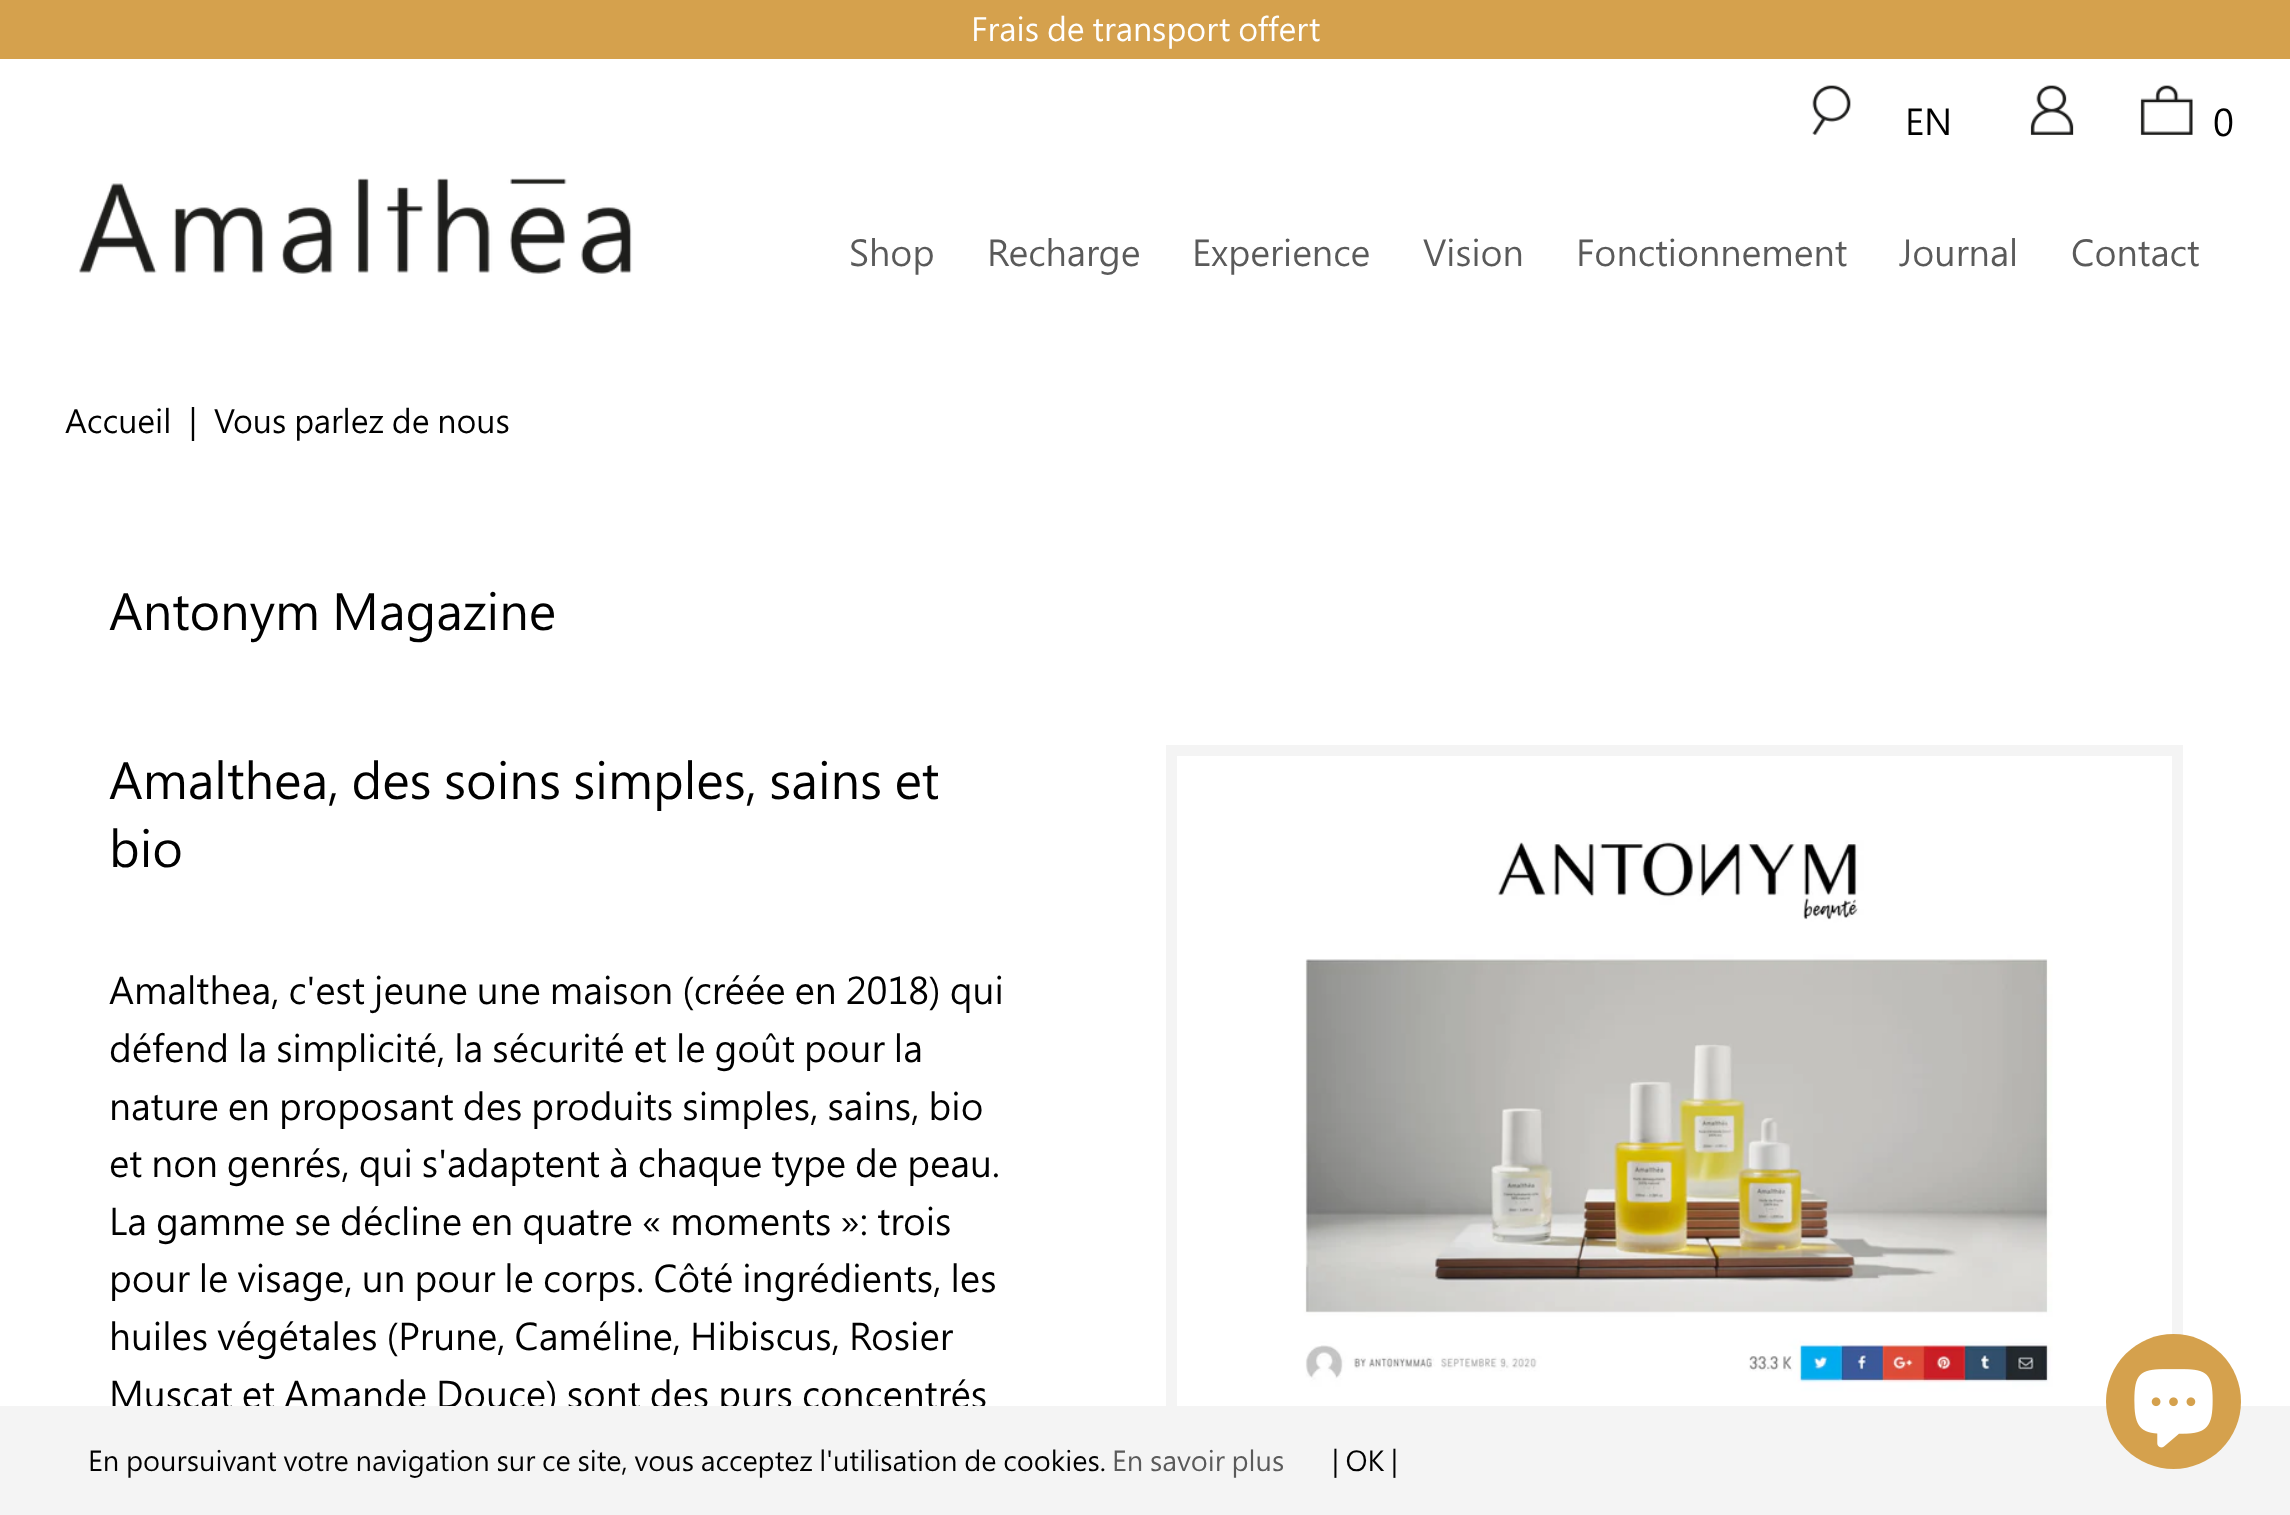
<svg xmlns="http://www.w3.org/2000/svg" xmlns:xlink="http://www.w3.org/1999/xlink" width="2290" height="1515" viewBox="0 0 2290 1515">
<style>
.cls-1{font:31.5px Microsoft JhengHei;fill:#ffffff}
.cls-2{font:35px Microsoft JhengHei;fill:#000000}
.cls-3{font:36px Microsoft JhengHei;fill:#000000}
.cls-4{font:35px Microsoft JhengHei;fill:#5a5a5a}
.cls-5{font:31.5px Microsoft JhengHei;fill:#000000}
.cls-6{font:48.6px Microsoft JhengHei;fill:#000000}
.cls-7{font:27px Microsoft JhengHei;fill:#000000}
.cls-8{font:27px Microsoft JhengHei;fill:#5a5a5a}
</style>
<rect width="100%" height="100%" fill="#ffffff"/>
<rect fill="#d5a14d" x="0" y="0" width="2290" height="59"/>
<image xlink:href="image0.png" x="1812" y="85" width="39" height="50"/>
<image xlink:href="image1.png" x="2030" y="85" width="44" height="50"/>
<image xlink:href="image2.png" x="2140" y="85" width="53" height="50"/>
<image xlink:href="image3.png" x="79" y="178" width="553" height="96"/>
<rect fill="none" stroke="#f4f4f4" stroke-width="11" x="1171.5" y="750.5" width="1006" height="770"/>
<image xlink:href="image4.png" x="1276" y="840" width="799" height="566"/>
<text class="cls-1" x="971" y="41">Frais de transport offert</text>
<text class="cls-2" x="1905" y="135">EN</text>
<text class="cls-3" x="2213" y="136">0</text>
<text class="cls-4" x="849" y="266">Shop</text>
<text class="cls-4" x="987" y="266">Recharge</text>
<text class="cls-4" x="1192" y="266">Experience</text>
<text class="cls-4" x="1423" y="266">Vision</text>
<text class="cls-4" x="1576" y="266">Fonctionnement</text>
<text class="cls-4" x="1899" y="266">Journal</text>
<text class="cls-4" x="2071" y="266">Contact</text>
<text class="cls-5" x="65" y="433">Accueil</text>
<text class="cls-5" x="189" y="433">|</text>
<text class="cls-5" x="214" y="433">Vous parlez de nous</text>
<text class="cls-6" x="109" y="630">Antonym Magazine</text>
<text class="cls-6"><tspan x="109" y="799">Amalthea, des soins simples, sains et</tspan><tspan x="109" y="867">bio</tspan></text>
<text class="cls-3"><tspan x="109" y="1004">Amalthea, c'est jeune une maison (créée en 2018) qui</tspan><tspan x="109" y="1062">défend la simplicité, la sécurité et le goût pour la</tspan><tspan x="109" y="1120">nature en proposant des produits simples, sains, bio</tspan><tspan x="109" y="1177">et non genrés, qui s'adaptent à chaque type de peau.</tspan><tspan x="109" y="1235">La gamme se décline en quatre « moments »: trois</tspan><tspan x="109" y="1292">pour le visage, un pour le corps. Côté ingrédients, les</tspan><tspan x="109" y="1350">huiles végétales (Prune, Caméline, Hibiscus, Rosier</tspan><tspan x="109" y="1408">Muscat et Amande Douce) sont des purs concentrés</tspan></text>
<rect fill="#f4f4f4" x="0" y="1406" width="2290" height="109"/>
<circle fill="#d5a14d" cx="2173.5" cy="1401.5" r="67.5"/>
<image xlink:href="image5.png" x="2134" y="1369" width="79" height="79"/>
<text class="cls-7" x="88" y="1471">En poursuivant votre navigation sur ce site, vous acceptez l'utilisation de cookies.</text>
<text class="cls-8" x="1112" y="1471">En savoir plus</text>
<text class="cls-7" x="1332" y="1471">| OK |</text>
</svg>
